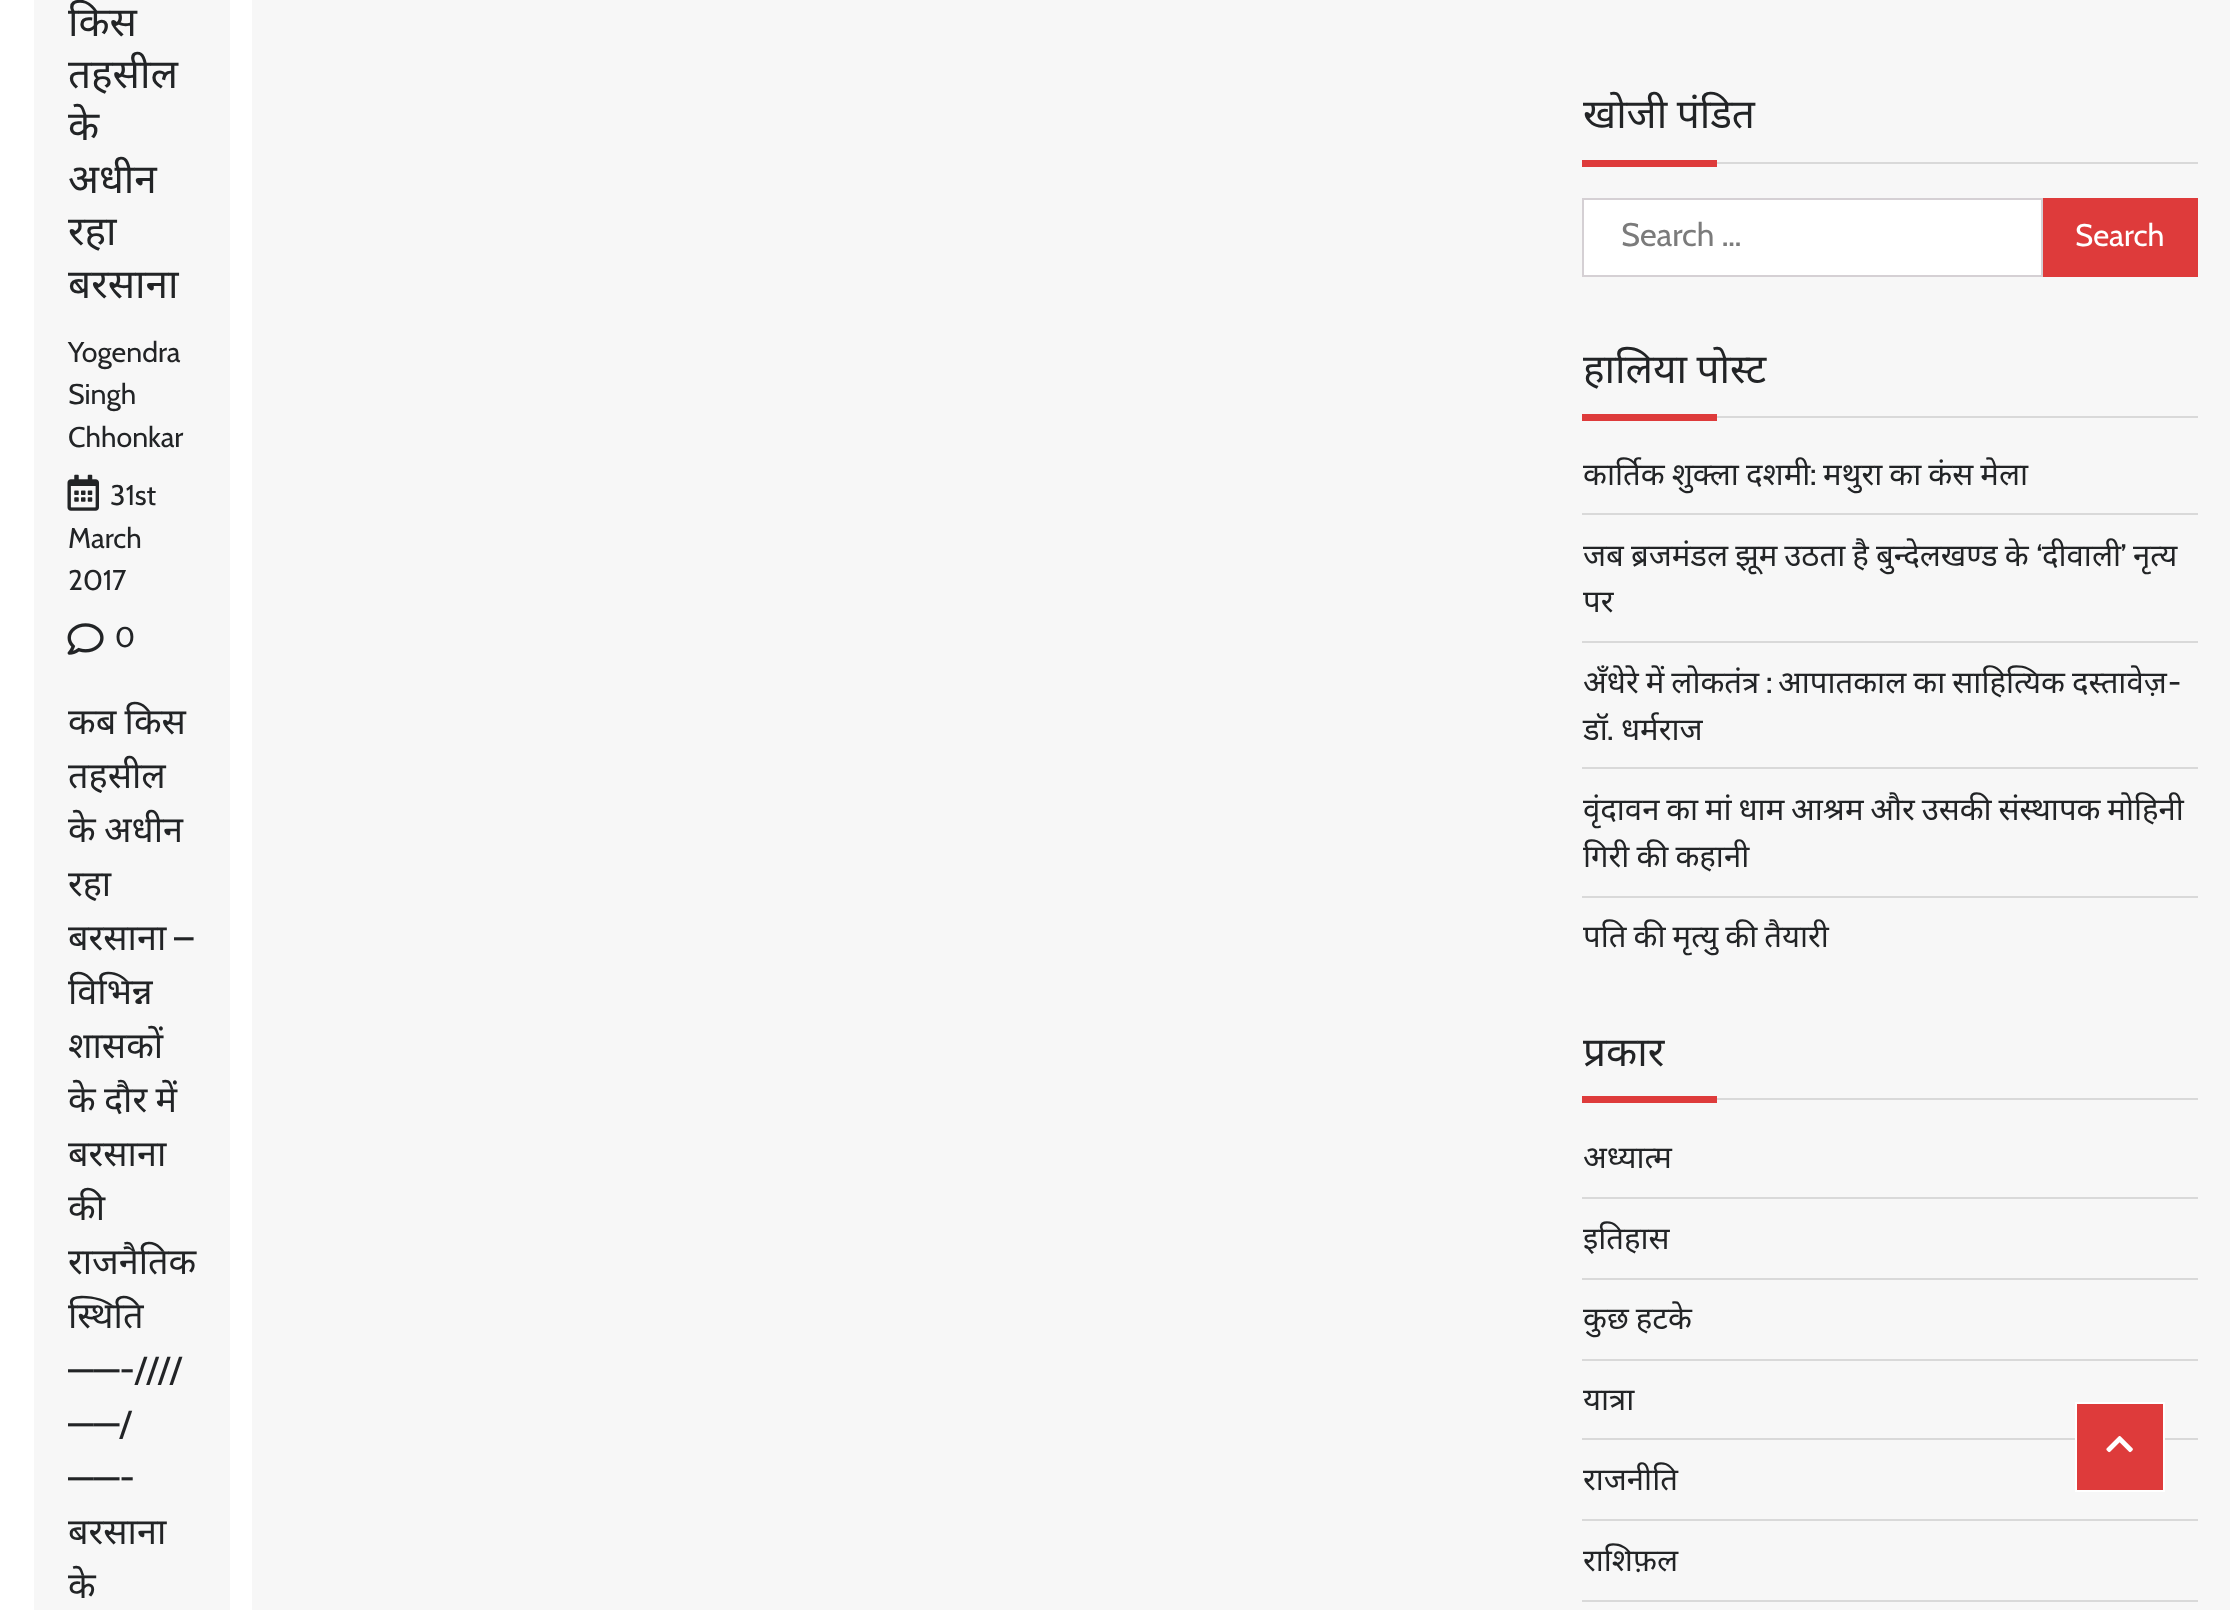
<svg xmlns="http://www.w3.org/2000/svg" xmlns:xlink="http://www.w3.org/1999/xlink" width="2230" height="1610" viewBox="0 0 2230 1610">
<style>
.cls-1{font:40.5px Noto Sans;fill:#222426}
.cls-2{font:28.5px Cabin;fill:#222426}
.cls-3{font:36px Noto Sans;fill:#222426}
.cls-4{font:36px Cabin;fill:#222426}
.cls-5{font:32.5px Cabin;fill:#7b7b7b}
.cls-6{font:31.1px Cabin;fill:#ffffff}
.cls-7{font:31.1px Noto Sans;fill:#222426}
.cls-8{font:31.1px Cabin;fill:#222426}
</style>
<rect width="100%" height="100%" fill="#ffffff"/>
<rect fill="#f7f7f7" x="34" y="0" width="196" height="1610"/>
<image xlink:href="image0.png" x="67" y="474" width="32" height="37"/>
<image xlink:href="image1.png" x="67" y="623" width="37" height="32"/>
<rect fill="#f7f7f7" x="252" y="0" width="1978" height="1610"/>
<rect fill="#d9d9d9" x="1717" y="162" width="481" height="2"/>
<rect fill="#de3b3b" x="1582" y="160" width="135" height="7"/>
<rect fill="#ffffff" stroke="#d5d0d4" stroke-width="2" x="1583" y="199" width="459" height="77"/>
<rect fill="#de3b3b" x="2043" y="198" width="155" height="79"/>
<rect fill="#d9d9d9" x="1717" y="416" width="481" height="2"/>
<rect fill="#de3b3b" x="1582" y="414" width="135" height="7"/>
<rect fill="#d9d9d9" x="1582" y="513" width="616" height="2"/>
<rect fill="#d9d9d9" x="1582" y="641" width="616" height="2"/>
<rect fill="#d9d9d9" x="1582" y="767" width="616" height="2"/>
<rect fill="#d9d9d9" x="1582" y="896" width="616" height="2"/>
<rect fill="#d9d9d9" x="1717" y="1098" width="481" height="2"/>
<rect fill="#de3b3b" x="1582" y="1096" width="135" height="7"/>
<rect fill="#d9d9d9" x="1582" y="1197" width="616" height="2"/>
<rect fill="#d9d9d9" x="1582" y="1278" width="616" height="2"/>
<rect fill="#d9d9d9" x="1582" y="1359" width="616" height="2"/>
<rect fill="#d9d9d9" x="1582" y="1438" width="616" height="2"/>
<rect fill="#d9d9d9" x="1582" y="1519" width="616" height="2"/>
<rect fill="#d9d9d9" x="1582" y="1600" width="616" height="2"/>
<rect fill="#de3b3b" stroke="#ffffff" stroke-width="2" x="2076" y="1403" width="88" height="88"/>
<image xlink:href="image2.png" x="2106" y="1436" width="27" height="17"/>
<text class="cls-1"><tspan x="68" y="36">किस</tspan><tspan x="68" y="88">तहसील</tspan><tspan x="68" y="140">के</tspan><tspan x="68" y="193">अधीन</tspan><tspan x="68" y="245">रहा</tspan><tspan x="68" y="298">बरसाना</tspan></text>
<text class="cls-2"><tspan x="68" y="362">Yogendra</tspan><tspan x="68" y="404">Singh</tspan><tspan x="68" y="447">Chhonkar</tspan></text>
<text class="cls-2" x="110" y="505">31st</text>
<text class="cls-2"><tspan x="68" y="548">March</tspan><tspan x="68" y="590">2017</tspan></text>
<text class="cls-2" x="115" y="647">0</text>
<text class="cls-3"><tspan x="68" y="734" word-spacing="-1">कब किस</tspan><tspan x="68" y="788">तहसील</tspan><tspan x="68" y="842" word-spacing="-1">के अधीन</tspan><tspan x="68" y="896">रहा</tspan><tspan x="68" y="950">बरसाना</tspan></text>
<text class="cls-4" x="174" y="950">–</text>
<text class="cls-3"><tspan x="68" y="1004">विभिन्न</tspan><tspan x="68" y="1058">शासकों</tspan><tspan x="68" y="1112" word-spacing="-1">के दौर में</tspan><tspan x="68" y="1166">बरसाना</tspan><tspan x="68" y="1220">की</tspan><tspan x="68" y="1274">राजनैतिक</tspan><tspan x="68" y="1328">स्थिति</tspan></text>
<text class="cls-4"><tspan x="68" y="1382">——-////</tspan><tspan x="68" y="1436">——/</tspan><tspan x="68" y="1490">——-</tspan></text>
<text class="cls-3"><tspan x="68" y="1544">बरसाना</tspan><tspan x="68" y="1598">के</tspan></text>
<text class="cls-1" x="1583" y="128" word-spacing="-1">खोजी पंडित</text>
<text class="cls-5" x="1621" y="246">Search …</text>
<text class="cls-6" x="2075" y="246">Search</text>
<text class="cls-1" x="1583" y="383" word-spacing="-1">हालिया पोस्ट</text>
<text class="cls-7" x="1583" y="485" word-spacing="-1">कार्तिक शुक्ला दशमी</text>
<text class="cls-8" x="1810" y="485">:</text>
<text class="cls-7" x="1823" y="485" word-spacing="-1">मथुरा का कंस मेला</text>
<text class="cls-7" x="1583" y="566" word-spacing="-1">जब ब्रजमंडल झूम उठता है बुन्देलखण्ड के</text>
<text class="cls-8" x="2036" y="566">‘</text>
<text class="cls-7" x="2042" y="566">दीवाली</text>
<text class="cls-8" x="2121" y="566">’</text>
<text class="cls-7" x="2133" y="566">नृत्य</text>
<text class="cls-7" x="1583" y="612">पर</text>
<text class="cls-7" x="1583" y="693" word-spacing="-1">अँधेरे में लोकतंत्र</text>
<text class="cls-8" x="1766" y="693">:</text>
<text class="cls-7" x="1778" y="693" word-spacing="-1">आपातकाल का साहित्यिक दस्तावेज़</text>
<text class="cls-8" x="2168" y="693">-</text>
<text class="cls-7" x="1583" y="740">डॉ</text>
<text class="cls-8" x="1607" y="740">.</text>
<text class="cls-7" x="1621" y="740">धर्मराज</text>
<text class="cls-7"><tspan x="1583" y="820" word-spacing="-1.25">वृंदावन का मां धाम आश्रम और उसकी संस्थापक मोहिनी</tspan><tspan x="1583" y="867" word-spacing="-1">गिरी की कहानी</tspan></text>
<text class="cls-7" x="1583" y="947" word-spacing="-1">पति की मृत्यु की तैयारी</text>
<text class="cls-1" x="1583" y="1066">प्रकार</text>
<text class="cls-7" x="1583" y="1168">अध्यात्म</text>
<text class="cls-7" x="1583" y="1249">इतिहास</text>
<text class="cls-7" x="1583" y="1329" word-spacing="-1">कुछ हटके</text>
<text class="cls-7" x="1583" y="1410">यात्रा</text>
<text class="cls-7" x="1583" y="1490">राजनीति</text>
<text class="cls-7" x="1583" y="1571">राशिफ़ल</text>
</svg>
